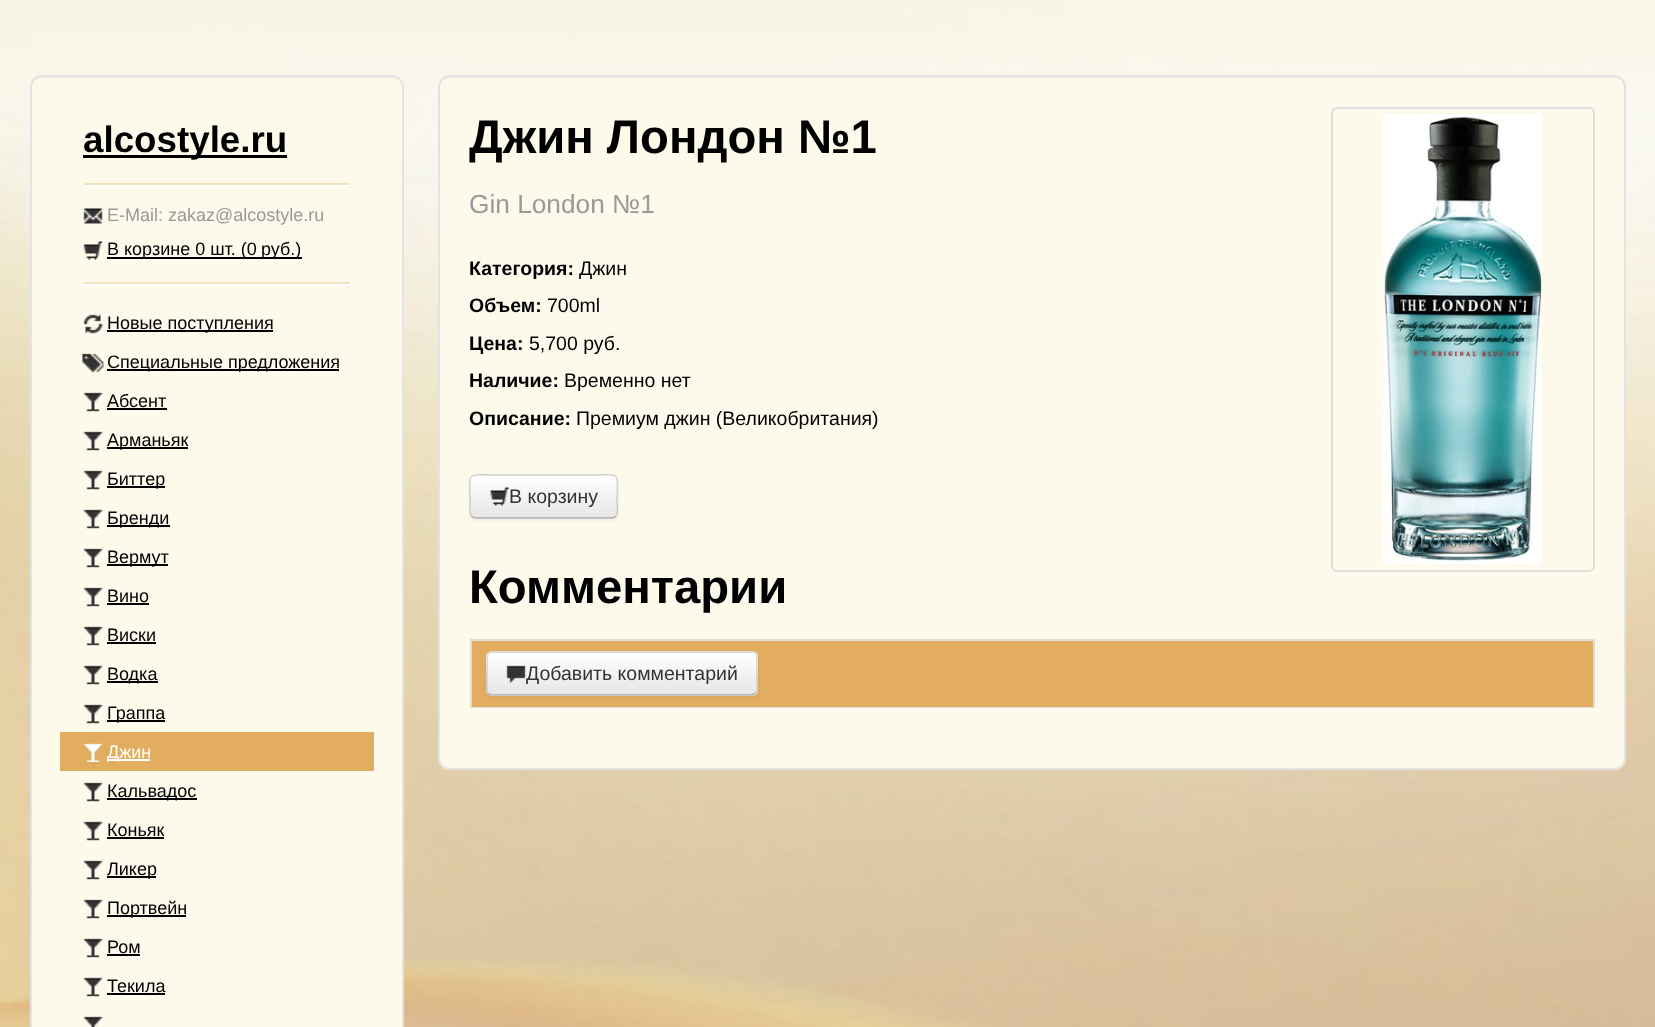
<svg xmlns="http://www.w3.org/2000/svg" xmlns:xlink="http://www.w3.org/1999/xlink" width="1655" height="1027" viewBox="0 0 1655 1027">
<style>
.cls-1{font:bold 36.75px Liberation Sans;fill:#000000}
.cls-2{font:18px Liberation Sans;fill:#999999}
.cls-3{font:18px Liberation Sans;fill:#000000}
.cls-4{font:18px Liberation Sans;fill:#ffffff}
.cls-5{font:bold 47.25px Liberation Sans;fill:#000000}
.cls-6{font:26.25px Liberation Sans;fill:#999999}
.cls-7{font:bold 19.5px Liberation Sans;fill:#000000}
.cls-8{font:19.5px Liberation Sans;fill:#000000}
.cls-9{font:19.5px Liberation Sans;fill:#333333}
</style>
<defs>
<clipPath id="clip1"><rect x="470" y="474" width="148" height="45" rx="6"/></clipPath>
<linearGradient id="g1" gradientUnits="userSpaceOnUse" x1="544" y1="476" x2="544" y2="518"><stop offset="0" stop-color="#ffffff"/><stop offset="1" stop-color="#e6e6e6"/></linearGradient>
<clipPath id="clip2"><rect x="486" y="651" width="272" height="45" rx="6"/></clipPath>
<linearGradient id="g2" gradientUnits="userSpaceOnUse" x1="622" y1="653" x2="622" y2="695"><stop offset="0" stop-color="#ffffff"/><stop offset="1" stop-color="#e6e6e6"/></linearGradient>
</defs>
<rect width="100%" height="100%" fill="#ffffff"/>
<image xlink:href="image0.png" x="0" y="0" width="1655" height="1027"/>
<rect fill="#fdfaec" x="30" y="75" width="374" height="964" rx="12"/>
<path fill="#f0eee0" d="M42 78H392C397 78 402 83 402 88C402 82 397 77 391 77H43C37 77 32 82 32 88C32 83 36 78 42 78Z"/>
<rect fill="none" stroke="#e3e3e3" stroke-width="2" x="31" y="76" width="372" height="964" rx="11"/>
<rect fill="#000000" x="83" y="155" width="204" height="3"/>
<rect fill="#f4e2be" x="84" y="183" width="266" height="2"/>
<rect fill="#ffffff" x="84" y="185" width="266" height="2"/>
<image xlink:href="image1.png" x="83" y="208" width="20" height="17"/>
<image xlink:href="image2.png" x="83" y="241" width="20" height="20"/>
<rect fill="#000000" x="107" y="257" width="139" height="2"/>
<rect fill="#000000" x="246" y="257" width="56" height="2"/>
<rect fill="#f4e2be" x="84" y="282" width="266" height="2"/>
<rect fill="#ffffff" x="84" y="284" width="266" height="2"/>
<image xlink:href="image3.png" x="83" y="314" width="20" height="20"/>
<rect fill="#000000" x="107" y="330" width="166" height="2"/>
<image xlink:href="image4.png" x="82" y="353" width="22" height="20"/>
<rect fill="#000000" x="107" y="369" width="232" height="2"/>
<image xlink:href="image5.png" x="83" y="392" width="20" height="20"/>
<rect fill="#000000" x="107" y="408" width="60" height="2"/>
<image xlink:href="image5.png" x="83" y="431" width="20" height="20"/>
<rect fill="#000000" x="107" y="447" width="81" height="2"/>
<image xlink:href="image5.png" x="83" y="470" width="20" height="20"/>
<rect fill="#000000" x="107" y="486" width="58" height="2"/>
<image xlink:href="image5.png" x="83" y="509" width="20" height="20"/>
<rect fill="#000000" x="107" y="525" width="63" height="2"/>
<image xlink:href="image5.png" x="83" y="548" width="20" height="20"/>
<rect fill="#000000" x="107" y="564" width="61" height="2"/>
<image xlink:href="image5.png" x="83" y="587" width="20" height="20"/>
<rect fill="#000000" x="107" y="603" width="42" height="2"/>
<image xlink:href="image5.png" x="83" y="626" width="20" height="20"/>
<rect fill="#000000" x="107" y="642" width="49" height="2"/>
<image xlink:href="image5.png" x="83" y="665" width="20" height="20"/>
<rect fill="#000000" x="107" y="681" width="51" height="2"/>
<image xlink:href="image5.png" x="83" y="704" width="20" height="20"/>
<rect fill="#000000" x="107" y="720" width="58" height="2"/>
<rect fill="#e3ad5f" x="60" y="732" width="314" height="39"/>
<image xlink:href="image6.png" x="83" y="743" width="20" height="21"/>
<rect fill="#ffffff" x="107" y="759" width="43" height="2"/>
<image xlink:href="image5.png" x="83" y="782" width="20" height="20"/>
<rect fill="#000000" x="107" y="798" width="90" height="2"/>
<image xlink:href="image5.png" x="83" y="821" width="20" height="20"/>
<rect fill="#000000" x="107" y="837" width="57" height="2"/>
<image xlink:href="image5.png" x="83" y="860" width="20" height="20"/>
<rect fill="#000000" x="107" y="876" width="49" height="2"/>
<image xlink:href="image5.png" x="83" y="899" width="20" height="20"/>
<rect fill="#000000" x="107" y="915" width="79" height="2"/>
<image xlink:href="image5.png" x="83" y="938" width="20" height="20"/>
<rect fill="#000000" x="107" y="954" width="33" height="2"/>
<image xlink:href="image5.png" x="83" y="977" width="20" height="20"/>
<rect fill="#000000" x="107" y="993" width="58" height="2"/>
<image xlink:href="image7.png" x="83" y="1016" width="20" height="11"/>
<rect fill="#fdfaec" x="438" y="75" width="1188" height="695" rx="12"/>
<path fill="#f0eee0" d="M450 78H1614C1620 78 1624 83 1624 88V759V763C1624 761 1625 759 1625 757V88C1625 82 1620 77 1614 77H451C445 77 440 82 440 88C440 83 444 78 450 78Z"/>
<rect fill="none" stroke="#e3e3e3" stroke-width="2" x="439" y="76" width="1186" height="693" rx="11"/>
<rect fill="none" stroke="#dddddd" stroke-width="2" x="1332" y="108" width="262" height="463" rx="5"/>
<image xlink:href="image8.png" x="1383" y="114" width="159" height="450"/>
<rect fill="#000000" fill-opacity="0.05" filter="blur(1.5px)" x="470" y="476" width="148" height="45" rx="6"/>
<rect fill="#f5f5f5" x="470" y="474" width="148" height="45" rx="6"/>
<g clip-path="url(#clip1)">
<rect fill="url(#g1)" x="470" y="476" width="148" height="42"/>
</g>
<path fill="#ffffff" fill-opacity="0.2" d="M476 477H612C614 477 616 479 616 482V514L615 517C616 516 617 514 617 513V481C617 478 615 476 612 476H476C473 476 471 478 471 481V482C471 479 473 477 476 477Z"/>
<path fill="none" stroke="#000000" stroke-opacity="0.25" stroke-width="1.5" d="M615.5 516.5C614.5 517.5 613.5 518 612 518H475.5C474 518 473 517.5 472 516.5"/>
<path fill="none" stroke="#000000" stroke-opacity="0.15" stroke-width="1.5" d="M472 516.5C468.5 513.5 470 505.5 470 502C470 470 464.5 475 498 475H589C623 475 617 470 617 502C617 505.5 619 513.5 615.5 516.5"/>
<image xlink:href="image9.png" x="490" y="487" width="19" height="19"/>
<rect fill="#dddddd" x="470" y="639" width="1125" height="2"/>
<rect fill="#dddddd" x="1593" y="639" width="2" height="69"/>
<rect fill="#dddddd" x="470" y="707" width="1125" height="1"/>
<rect fill="#dddddd" x="470" y="639" width="2" height="69"/>
<rect fill="#e3ad5f" x="472" y="641" width="1121" height="66"/>
<rect fill="#000000" fill-opacity="0.05" filter="blur(1.5px)" x="486" y="653" width="272" height="45" rx="6"/>
<rect fill="#f5f5f5" x="486" y="651" width="272" height="45" rx="6"/>
<g clip-path="url(#clip2)">
<rect fill="url(#g2)" x="486" y="653" width="272" height="42"/>
</g>
<path fill="none" stroke="#000000" stroke-opacity="0.25" stroke-width="1.5" d="M755 693.5L752 695H492C490.5 695 489.5 694.5 488.5 693.5"/>
<path fill="none" stroke="#000000" stroke-opacity="0.15" stroke-width="1.5" d="M488.5 693.5C487.5 692.5 487 691.5 487 690V657C487 655.5 487.5 654.5 488.5 653.5C489.5 652.5 490.5 652 492 652H751.5C753 652 754 652.5 755 653.5C756 654.5 757 655.5 757 657V690C757 691.5 756 692.5 755 693.5"/>
<image xlink:href="image10.png" x="506" y="665" width="20" height="18"/>
<text class="cls-1" x="83" y="152">alcostyle.ru</text>
<text class="cls-2" x="107" y="221">E-Mail: zakaz@alcostyle.ru</text>
<text class="cls-3" x="107" y="255">В корзине 0 шт. (0</text>
<text class="cls-3" x="261" y="255">руб.)</text>
<text class="cls-3" x="107" y="329">Новые поступления</text>
<text class="cls-3" x="107" y="368">Специальные предложения</text>
<text class="cls-3" x="107" y="407">Абсент</text>
<text class="cls-3" x="107" y="446">Арманьяк</text>
<text class="cls-3" x="107" y="485">Биттер</text>
<text class="cls-3" x="107" y="524">Бренди</text>
<text class="cls-3" x="107" y="563">Вермут</text>
<text class="cls-3" x="107" y="602">Вино</text>
<text class="cls-3" x="107" y="641">Виски</text>
<text class="cls-3" x="107" y="680">Водка</text>
<text class="cls-3" x="107" y="719">Граппа</text>
<text class="cls-4" x="107" y="758">Джин</text>
<text class="cls-3" x="107" y="797">Кальвадос</text>
<text class="cls-3" x="107" y="836">Коньяк</text>
<text class="cls-3" x="107" y="875">Ликер</text>
<text class="cls-3" x="107" y="914">Портвейн</text>
<text class="cls-3" x="107" y="953">Ром</text>
<text class="cls-3" x="107" y="992">Текила</text>
<text class="cls-5" x="469" y="153">Джин Лондон №1</text>
<text class="cls-6" x="469" y="213">Gin London №1</text>
<text class="cls-7" x="469" y="275">Категория:</text>
<text class="cls-8" x="579" y="275">Джин</text>
<text class="cls-7" x="469" y="312">Объем:</text>
<text class="cls-8" x="547" y="312">700ml</text>
<text class="cls-7" x="469" y="350">Цена:</text>
<text class="cls-8" x="529" y="350">5,700 руб.</text>
<text class="cls-7" x="469" y="387">Наличие:</text>
<text class="cls-8" x="564" y="387">Временно нет</text>
<text class="cls-7" x="469" y="425">Описание:</text>
<text class="cls-8" x="576" y="425">Премиум джин (Великобритания)</text>
<text class="cls-9" x="509" y="503">В корзину</text>
<text class="cls-5" x="469" y="603">Комментарии</text>
<text class="cls-9" x="526" y="680">Добавить комментарий</text>
</svg>
